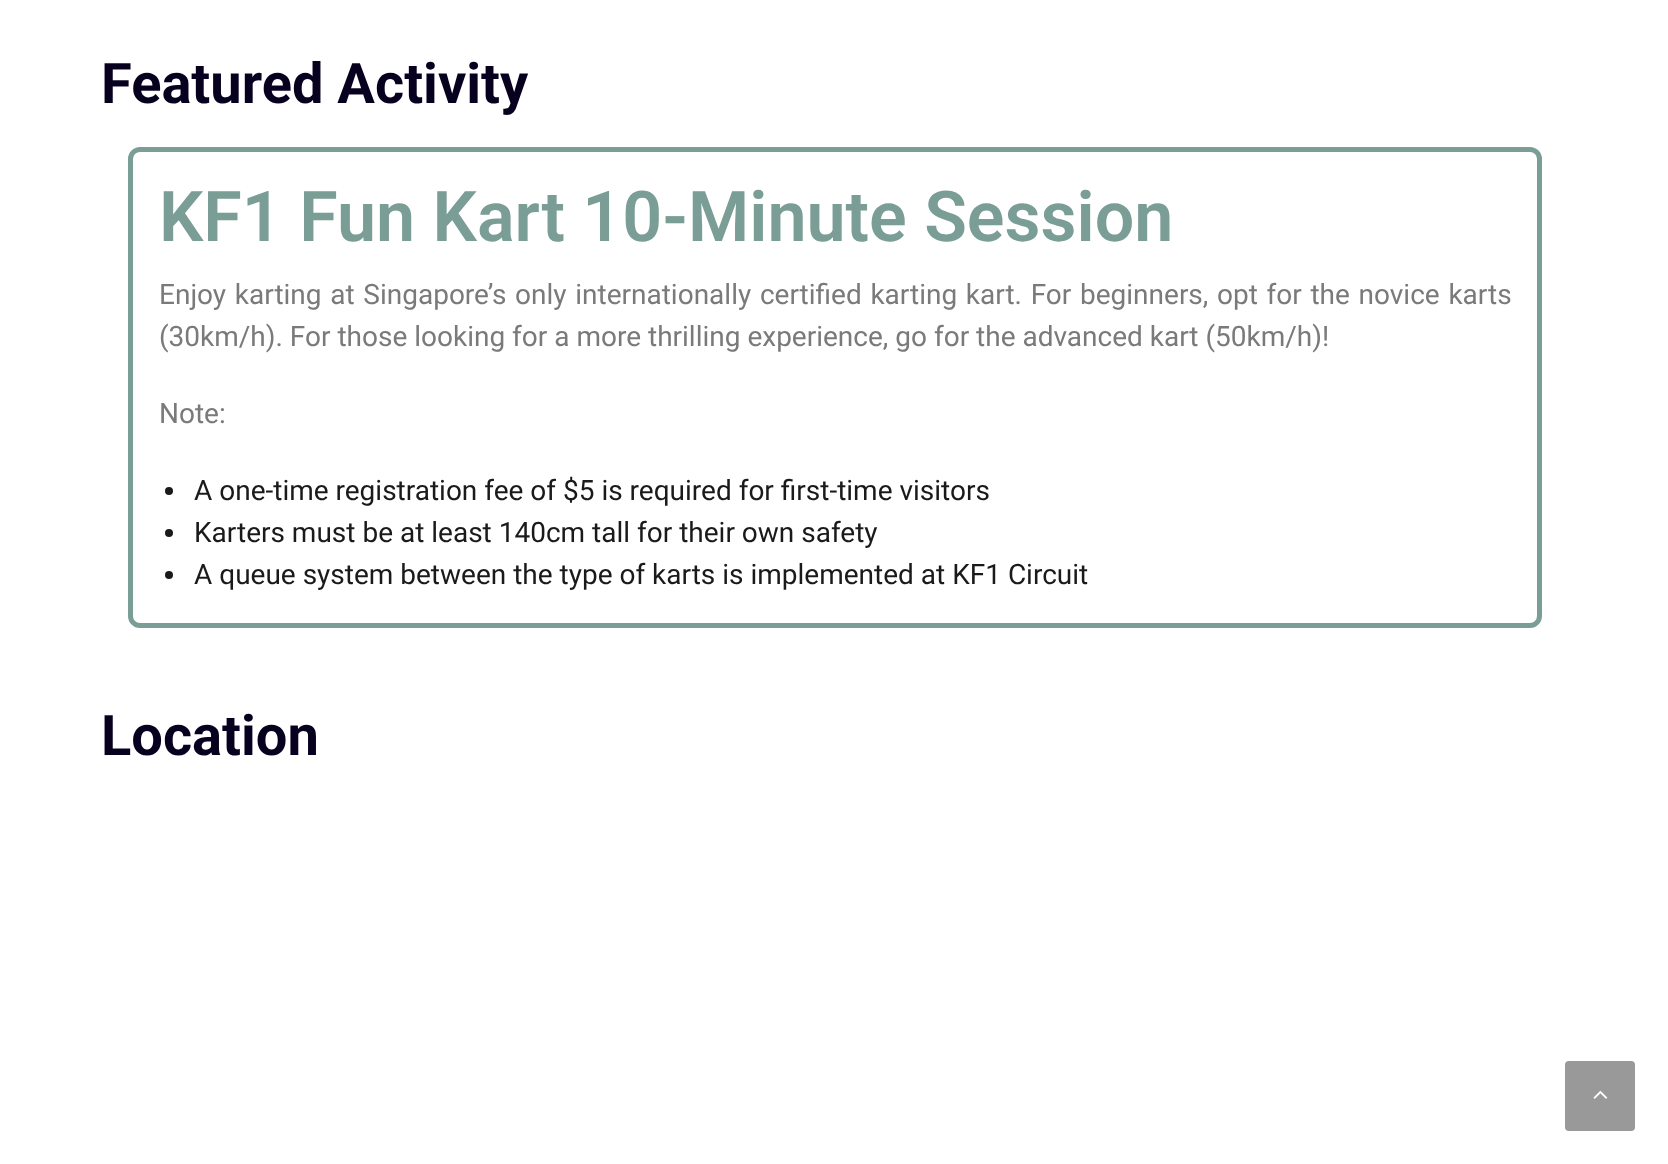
<svg xmlns="http://www.w3.org/2000/svg" xmlns:xlink="http://www.w3.org/1999/xlink" width="1668" height="1164" viewBox="0 0 1668 1164">
<style>
.cls-1{font:bold 56px Roboto;fill:#07001f}
.cls-2{font:600 70px Roboto;fill:#7a9d96}
.cls-3{font:28px Roboto;fill:#7a7a7a}
.cls-4{font:28px Roboto;fill:#1a1a1a}
</style>
<rect width="100%" height="100%" fill="#ffffff"/>
<rect fill="none" stroke="#7a9d96" stroke-width="5" x="130.5" y="149.5" width="1409" height="476" rx="9.5"/>
<circle fill="#1a1a1a" cx="169" cy="491" r="4"/>
<circle fill="#1a1a1a" cx="169" cy="533" r="4"/>
<circle fill="#1a1a1a" cx="169" cy="575" r="4"/>
<rect fill="#999999" x="1565" y="1061" width="70" height="70" rx="4"/>
<image xlink:href="image0.png" x="1593" y="1090" width="15" height="9"/>
<text class="cls-1" x="101" y="103">Featured Activity</text>
<text class="cls-2" x="159" y="241">KF1 Fun Kart 10-Minute Session</text>
<text class="cls-3"><tspan x="159" y="304" word-spacing="1.75">Enjoy karting at Singapore’s only internationally certified karting kart. For beginners, opt for the novice karts</tspan><tspan x="159" y="346">(30km/h). For those looking for a more thrilling experience, go for the advanced kart (50km/h)!</tspan></text>
<text class="cls-3" x="159" y="423">Note:</text>
<text class="cls-4"><tspan x="194" y="500">A one-time registration fee of $5 is required for first-time visitors</tspan><tspan x="194" y="542">Karters must be at least 140cm tall for their own safety</tspan><tspan x="194" y="584">A queue system between the type of karts is implemented at KF1 Circuit</tspan></text>
<text class="cls-1" x="101" y="755">Location</text>
</svg>
